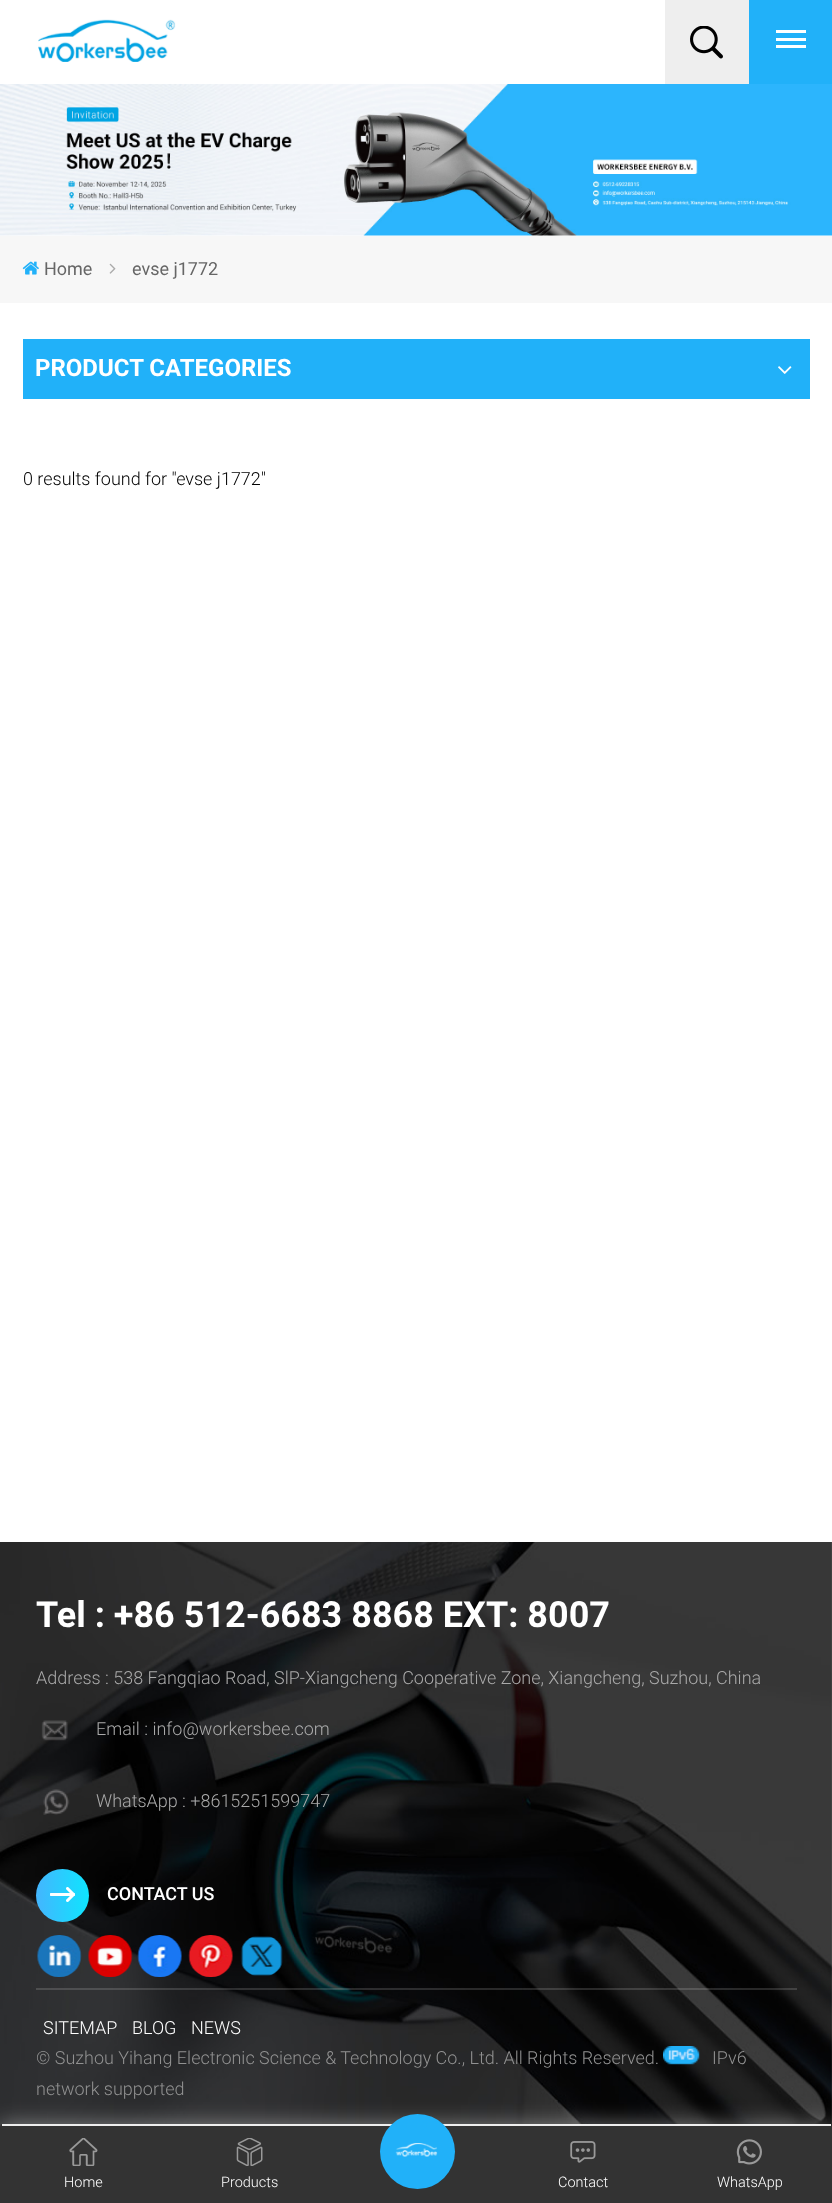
<svg xmlns="http://www.w3.org/2000/svg" xmlns:xlink="http://www.w3.org/1999/xlink" width="832" height="2203" viewBox="0 0 832 2203">
<style>
.cls-1{font:18px Roboto;fill:#666666}
.cls-2{font:bold 24px Roboto;fill:#ffffff}
.cls-3{font:300 18px Roboto;fill:#000000}
.cls-4{font:bold 36px Roboto;fill:#ffffff}
.cls-5{font:300 18px Roboto;fill:#aaaaaa}
.cls-6{font:500 18px Roboto;fill:#ffffff}
.cls-7{font:300 18px Roboto;fill:#ffffff}
.cls-8{font:300 18px Roboto;fill:#919191}
.cls-9{font:300 14.5px Roboto;fill:#ffffff}
</style>
<defs>
<linearGradient id="g1" gradientUnits="userSpaceOnUse" x1="36" y1="1895" x2="89" y2="1895"><stop offset="0" stop-color="#44b5fe"/><stop offset="1" stop-color="#0ee5fe"/></linearGradient>
</defs>
<rect width="100%" height="100%" fill="#ffffff"/>
<image xlink:href="image0.png" x="38" y="19" width="138" height="43"/>
<rect fill="#eeeeee" x="665" y="0" width="84" height="84"/>
<image xlink:href="image1.png" x="690" y="26" width="33" height="33"/>
<rect fill="#21b1f9" x="749" y="0" width="83" height="84"/>
<rect fill="#ffffff" x="776" y="30" width="30" height="3"/>
<rect fill="#ffffff" x="776" y="38" width="30" height="3"/>
<rect fill="#ffffff" x="776" y="45" width="30" height="3"/>
<image xlink:href="image2.png" x="0" y="84" width="832" height="152"/>
<rect fill="#f7f7f7" x="0" y="236" width="832" height="67"/>
<image xlink:href="image3.png" x="22" y="261" width="17" height="14"/>
<image xlink:href="image4.png" x="109" y="263" width="7" height="11"/>
<rect fill="#21b1f9" x="23" y="339" width="787" height="60"/>
<image xlink:href="image5.png" x="778" y="366" width="14" height="8"/>
<image xlink:href="image6.png" x="0" y="1542" width="832" height="585"/>
<image xlink:href="image7.png" x="41" y="1720" width="27" height="21"/>
<image xlink:href="image8.png" x="43" y="1789" width="27" height="26"/>
<circle fill="url(#g1)" cx="62.5" cy="1895.5" r="26.5"/>
<image xlink:href="image9.png" x="50" y="1887" width="25" height="15"/>
<image xlink:href="image10.png" x="37" y="1935" width="45" height="42"/>
<image xlink:href="image11.png" x="88" y="1935" width="45" height="42"/>
<image xlink:href="image12.png" x="137" y="1935" width="45" height="42"/>
<image xlink:href="image13.png" x="188" y="1935" width="45" height="42"/>
<image xlink:href="image14.png" x="240" y="1936" width="43" height="40"/>
<rect fill="#ffffff" fill-opacity="0.15" x="36" y="1988" width="761" height="2"/>
<image xlink:href="image15.png" x="663" y="2046" width="37" height="19"/>
<rect fill="#ffffff" fill-opacity="0.4" filter="blur(11px)" x="0" y="2124" width="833" height="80" rx="3"/>
<path fill="#333333" d="M3 2124H830C831.5 2124 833 2125.5 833 2127V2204H0V2127C0 2125.5 1.5 2124 3 2124Z"/>
<rect fill="#eeeeee" x="2" y="2124" width="829" height="2"/>
<circle fill="#21b1f9" cx="417.5" cy="2151.5" r="37.5"/>
<image xlink:href="image16.png" x="395" y="2143" width="43" height="14"/>
<image xlink:href="image17.png" x="69" y="2138" width="29" height="28"/>
<image xlink:href="image18.png" x="236" y="2138" width="27" height="28"/>
<image xlink:href="image19.png" x="570" y="2141" width="26" height="22"/>
<image xlink:href="image20.png" x="736" y="2139" width="26" height="26"/>
<text class="cls-1" x="44" y="275">Home</text>
<text class="cls-1" x="132" y="275">evse j1772</text>
<text class="cls-2" x="35" y="376">PRODUCT CATEGORIES</text>
<text class="cls-3" x="23" y="485">0 results found for "evse j1772"</text>
<text class="cls-4" x="36" y="1627">Tel : +86 512-6683 8868 EXT: 8007</text>
<text class="cls-5" x="36" y="1684">Address : 538 Fangqiao Road, SlP-Xiangcheng Cooperative Zone, Xiangcheng, Suzhou, China</text>
<text class="cls-5" x="96" y="1735">Email : info@workersbee.com</text>
<text class="cls-5" x="96" y="1807">WhatsApp : +8615251599747</text>
<text class="cls-6" x="107" y="1900">CONTACT US</text>
<text class="cls-7" x="43" y="2034">SITEMAP</text>
<text class="cls-7" x="132" y="2034">BLOG</text>
<text class="cls-7" x="191" y="2034">NEWS</text>
<text class="cls-8" x="36" y="2064">© Suzhou Yihang Electronic Science &amp; Technology Co., Ltd. All Rights Reserved.</text>
<text class="cls-8" x="712" y="2064">IPv6</text>
<text class="cls-8" x="36" y="2095">network supported</text>
<text class="cls-9" x="64" y="2187">Home</text>
<text class="cls-9" x="221" y="2187">Products</text>
<text class="cls-9" x="558" y="2187">Contact</text>
<text class="cls-9" x="717" y="2187">WhatsApp</text>
</svg>
